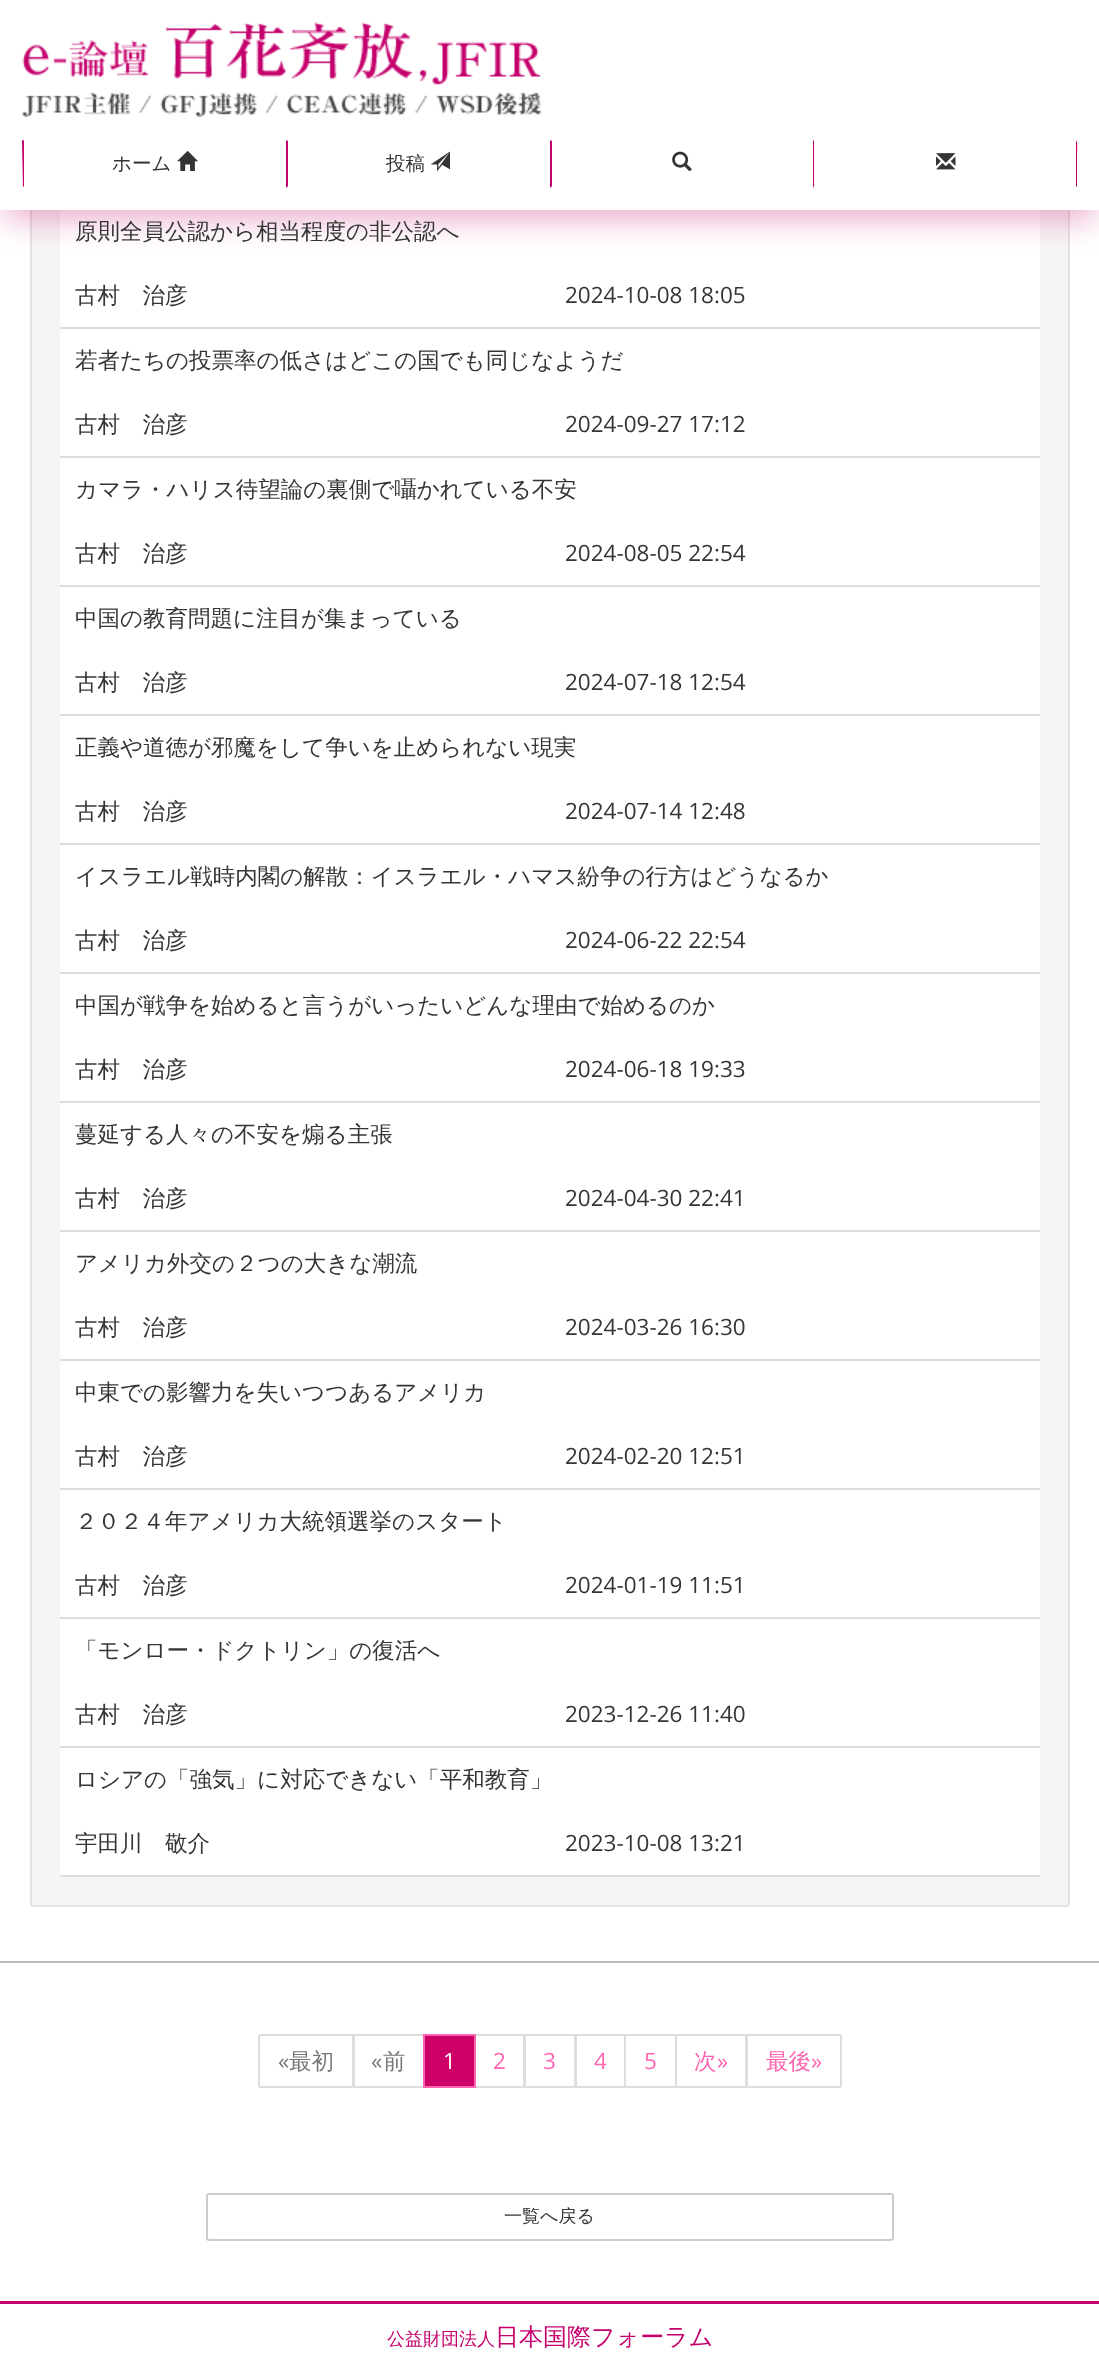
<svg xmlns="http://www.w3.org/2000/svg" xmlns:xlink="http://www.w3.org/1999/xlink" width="1099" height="2370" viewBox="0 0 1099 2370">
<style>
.cls-1{font:500 19.5px WenQuanYi Zen Hei;fill:#353535}
.cls-2{font:500 22.5px WenQuanYi Zen Hei;fill:#353535}
.cls-3{font:22.5px Open Sans;fill:#353535}
.cls-4{font:22.5px Open Sans;fill:#777777}
.cls-5{font:500 22.5px WenQuanYi Zen Hei;fill:#777777}
.cls-6{font:22.5px Open Sans;fill:#ffffff}
.cls-7{font:22.5px Open Sans;fill:#ff64b1}
.cls-8{font:500 22.5px WenQuanYi Zen Hei;fill:#ff64b1}
.cls-9{font:500 18px WenQuanYi Zen Hei;fill:#353535}
.cls-10{font:500 18px WenQuanYi Zen Hei;fill:#c4006c}
.cls-11{font:500 24px WenQuanYi Zen Hei;fill:#c4006c}
</style>
<rect width="100%" height="100%" fill="#ffffff"/>
<rect fill="#f5f5f5" stroke="#e3e3e3" stroke-width="2" x="31" y="-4" width="1038" height="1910" rx="2"/>
<rect fill="#ffffff" x="60" y="210" width="980" height="1665"/>
<rect fill="#c4006c" fill-opacity="0.3" filter="blur(15px)" x="5" y="20" width="1090" height="201"/>
<rect fill="#ffffff" x="0" y="0" width="1099" height="210"/>
<image xlink:href="image0.png" x="22" y="22" width="520" height="95"/>
<path fill="#c4006c" d="M24 141V186L23 187L22 140H23Z"/>
<image xlink:href="image1.png" x="177" y="151" width="21" height="20"/>
<path fill="#c4006c" d="M286 188V140L288 141V186Z"/>
<image xlink:href="image2.png" x="430" y="151" width="20" height="21"/>
<path fill="#c4006c" d="M550 188V140L552 141V186Z"/>
<image xlink:href="image3.png" x="672" y="151" width="20" height="21"/>
<path fill="#c4006c" d="M1076 140C1078 141 1077 154 1077 156V187L1076 186V141Z"/>
<path fill="#c4006c" d="M814 141L813 140V188L814 186Z"/>
<image xlink:href="image4.png" x="936" y="153" width="20" height="17"/>
<rect fill="#bbbbbb" x="0" y="1961" width="1099" height="2"/>
<rect fill="#dddddd" x="60" y="327" width="980" height="2"/>
<rect fill="#dddddd" x="60" y="456" width="980" height="2"/>
<rect fill="#dddddd" x="60" y="585" width="980" height="2"/>
<rect fill="#dddddd" x="60" y="714" width="980" height="2"/>
<rect fill="#dddddd" x="60" y="843" width="980" height="2"/>
<rect fill="#dddddd" x="60" y="972" width="980" height="2"/>
<rect fill="#dddddd" x="60" y="1101" width="980" height="2"/>
<rect fill="#dddddd" x="60" y="1230" width="980" height="2"/>
<rect fill="#dddddd" x="60" y="1359" width="980" height="2"/>
<rect fill="#dddddd" x="60" y="1488" width="980" height="2"/>
<rect fill="#dddddd" x="60" y="1617" width="980" height="2"/>
<rect fill="#dddddd" x="60" y="1746" width="980" height="2"/>
<rect fill="#dddddd" x="60" y="1875" width="980" height="2"/>
<path fill="none" stroke="#dddddd" stroke-width="2" d="M261 2035H353V2087H261C260 2087 259 2086 259 2085V2037C259 2036 260 2035 261 2035Z"/>
<rect fill="none" stroke="#dddddd" stroke-width="2" x="354" y="2035" width="70" height="52"/>
<rect fill="none" stroke="#dddddd" stroke-width="2" x="475" y="2035" width="49" height="52"/>
<rect fill="#cc0066" stroke="#ff64b1" stroke-width="2" x="424" y="2035" width="51" height="52"/>
<rect fill="none" stroke="#dddddd" stroke-width="2" x="525" y="2035" width="50" height="52"/>
<rect fill="none" stroke="#dddddd" stroke-width="2" x="576" y="2035" width="49" height="52"/>
<rect fill="none" stroke="#dddddd" stroke-width="2" x="625" y="2035" width="51" height="52"/>
<rect fill="none" stroke="#dddddd" stroke-width="2" x="676" y="2035" width="70" height="52"/>
<path fill="#ffffff" stroke="#dddddd" stroke-width="2" d="M747 2035H839C840 2035 841 2036 841 2037V2085C841 2086 840 2087 839 2087H747Z"/>
<rect fill="none" stroke="#cccccc" stroke-width="2" x="207" y="2194" width="686" height="46" rx="2"/>
<rect fill="#c4006c" x="0" y="2301" width="1099" height="3"/>
<text class="cls-1" x="112" y="170">ホーム</text>
<text class="cls-1" x="386" y="170">投稿</text>
<text class="cls-2" x="75" y="239">原則全員公認から相当程度の非公認へ</text>
<text class="cls-2" x="75" y="303">古村　治彦</text>
<text class="cls-3" x="565" y="303">2024-10-08 18:05</text>
<text class="cls-2" x="75" y="368">若者たちの投票率の低さはどこの国でも同じなようだ</text>
<text class="cls-2" x="75" y="432">古村　治彦</text>
<text class="cls-3" x="565" y="432">2024-09-27 17:12</text>
<text class="cls-2" x="75" y="497">カマラ・ハリス待望論の裏側で囁かれている不安</text>
<text class="cls-2" x="75" y="561">古村　治彦</text>
<text class="cls-3" x="565" y="561">2024-08-05 22:54</text>
<text class="cls-2" x="75" y="626">中国の教育問題に注目が集まっている</text>
<text class="cls-2" x="75" y="690">古村　治彦</text>
<text class="cls-3" x="565" y="690">2024-07-18 12:54</text>
<text class="cls-2" x="75" y="755">正義や道徳が邪魔をして争いを止められない現実</text>
<text class="cls-2" x="75" y="819">古村　治彦</text>
<text class="cls-3" x="565" y="819">2024-07-14 12:48</text>
<text class="cls-2" x="75" y="884">イスラエル戦時内閣の解散：イスラエル・ハマス紛争の行方はどうなるか</text>
<text class="cls-2" x="75" y="948">古村　治彦</text>
<text class="cls-3" x="565" y="948">2024-06-22 22:54</text>
<text class="cls-2" x="75" y="1013">中国が戦争を始めると言うがいったいどんな理由で始めるのか</text>
<text class="cls-2" x="75" y="1077">古村　治彦</text>
<text class="cls-3" x="565" y="1077">2024-06-18 19:33</text>
<text class="cls-2" x="75" y="1142">蔓延する人々の不安を煽る主張</text>
<text class="cls-2" x="75" y="1206">古村　治彦</text>
<text class="cls-3" x="565" y="1206">2024-04-30 22:41</text>
<text class="cls-2" x="75" y="1271">アメリカ外交の２つの大きな潮流</text>
<text class="cls-2" x="75" y="1335">古村　治彦</text>
<text class="cls-3" x="565" y="1335">2024-03-26 16:30</text>
<text class="cls-2" x="75" y="1400">中東での影響力を失いつつあるアメリカ</text>
<text class="cls-2" x="75" y="1464">古村　治彦</text>
<text class="cls-3" x="565" y="1464">2024-02-20 12:51</text>
<text class="cls-2" x="75" y="1529">２０２４年アメリカ大統領選挙のスタート</text>
<text class="cls-2" x="75" y="1593">古村　治彦</text>
<text class="cls-3" x="565" y="1593">2024-01-19 11:51</text>
<text class="cls-2" x="75" y="1658">「モンロー・ドクトリン」の復活へ</text>
<text class="cls-2" x="75" y="1722">古村　治彦</text>
<text class="cls-3" x="565" y="1722">2023-12-26 11:40</text>
<text class="cls-2" x="75" y="1787">ロシアの「強気」に対応できない「平和教育」</text>
<text class="cls-2" x="75" y="1851">宇田川　敬介</text>
<text class="cls-3" x="565" y="1851">2023-10-08 13:21</text>
<text class="cls-4" x="278" y="2069">«</text>
<text class="cls-5" x="289" y="2069">最初</text>
<text class="cls-4" x="371" y="2069">«</text>
<text class="cls-5" x="383" y="2069">前</text>
<text class="cls-6" x="443" y="2069">1</text>
<text class="cls-7" x="493" y="2069">2</text>
<text class="cls-7" x="543" y="2069">3</text>
<text class="cls-7" x="594" y="2069">4</text>
<text class="cls-7" x="644" y="2069">5</text>
<text class="cls-8" x="694" y="2069">次</text>
<text class="cls-7" x="717" y="2069">»</text>
<text class="cls-8" x="766" y="2069">最後</text>
<text class="cls-7" x="811" y="2069">»</text>
<text class="cls-9" x="504" y="2222">一覧へ戻る</text>
<text class="cls-10" x="387" y="2345">公益財団法人</text>
<text class="cls-11" x="495" y="2345">日本国際フォーラム</text>
</svg>
